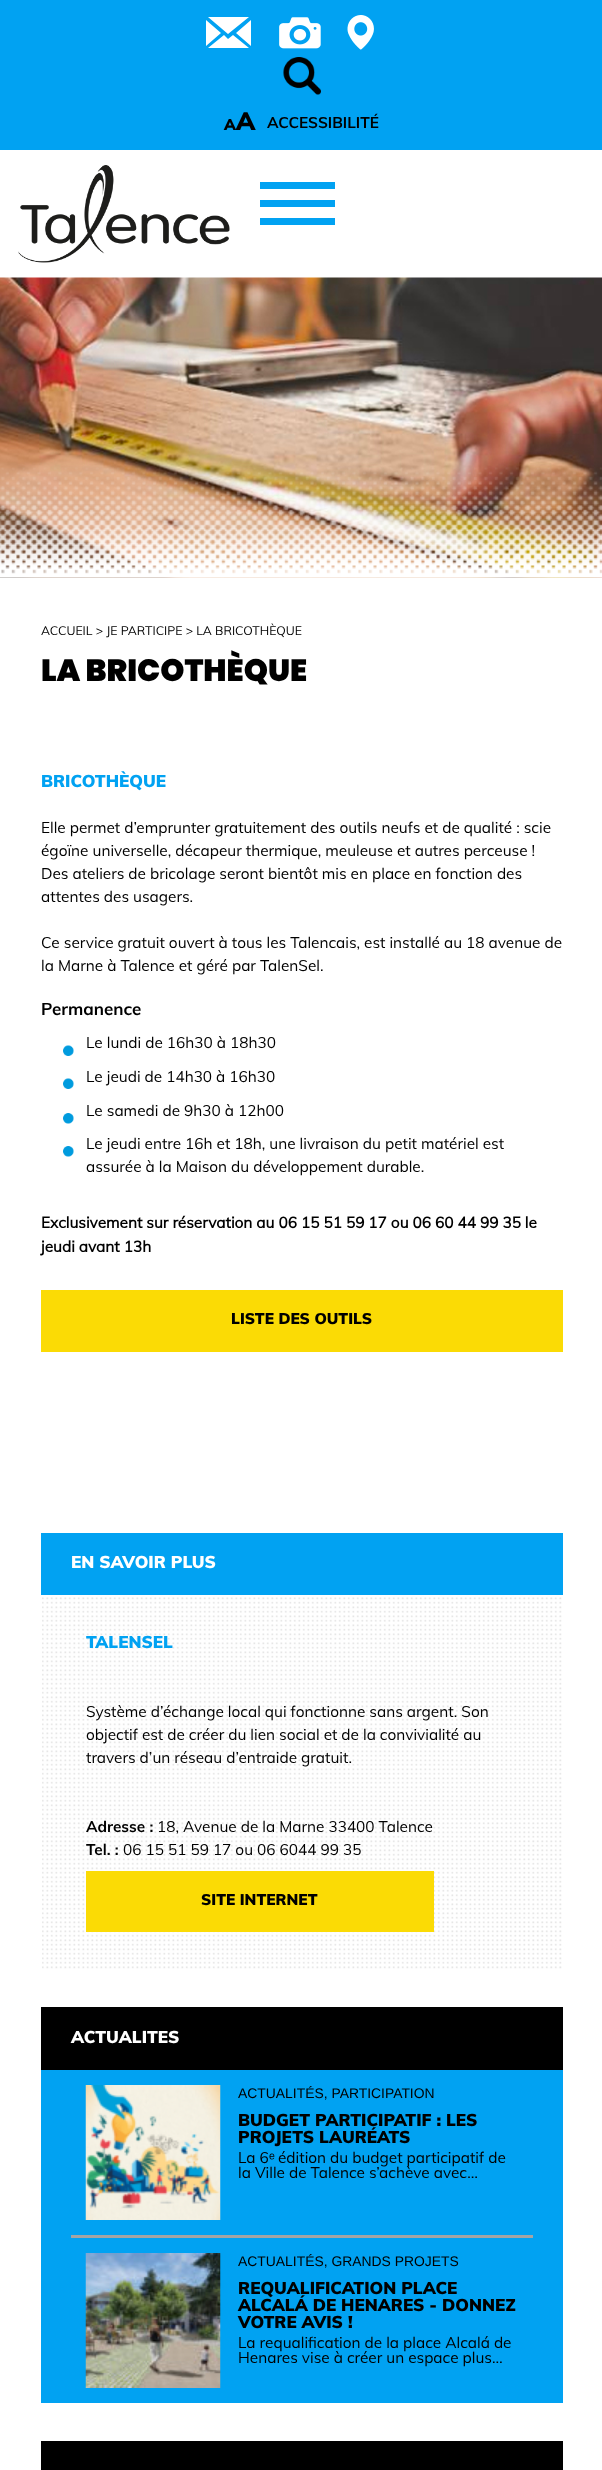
<svg xmlns="http://www.w3.org/2000/svg" xmlns:xlink="http://www.w3.org/1999/xlink" width="602" height="2470" viewBox="0 0 602 2470">
<style>
.cls-1{font:900 15.4px Muli;fill:#000000}
.cls-2{font:900 25px Muli;fill:#000000}
.cls-3{font:bold 15.4px Muli;fill:#000000}
.cls-4{font:12.3px Muli;fill:#000000}
.cls-5{font:900 30.75px Poppins;fill:#000000}
.cls-6{font:900 17px Muli;fill:#01a2f2}
.cls-7{font:15.4px Muli;fill:#000000}
.cls-8{font:bold 17px Muli;fill:#000000}
.cls-9{font:bold 15.4px 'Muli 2';fill:#000000}
.cls-10{font:900 17px Muli;fill:#ffffff}
.cls-11{font:13.9px Liberation Sans;fill:#000000}
.cls-12{font:900 17px Muli;fill:#000000}
.cls-13{font:15.4px Liberation Sans;fill:#000000}
</style>
<rect width="100%" height="100%" fill="#ffffff"/>
<rect fill="#01a2f2" x="0" y="0" width="602" height="150"/>
<path fill="#ffffff" fill-rule="evenodd" d="M236 33L251 20V46ZM208 17H249L228 34ZM206 46V20L221 33ZM228 39L233 35L249 48H208L224 35Z"/>
<image xlink:href="image0.png" x="279" y="17" width="42" height="32"/>
<image xlink:href="image1.png" x="347" y="15" width="27" height="35"/>
<image xlink:href="image2.png" x="283" y="57" width="38" height="38"/>
<image xlink:href="image3.png" x="18" y="165" width="212" height="98"/>
<rect fill="#01a2f2" x="260" y="182" width="75" height="7"/>
<rect fill="#01a2f2" x="260" y="200" width="75" height="7"/>
<rect fill="#01a2f2" x="260" y="218" width="75" height="7"/>
<image xlink:href="image4.png" x="0" y="277" width="602" height="301"/>
<image xlink:href="image5.png" x="0" y="467" width="602" height="111"/>
<image xlink:href="image6.png" x="63" y="1045" width="11" height="11"/>
<image xlink:href="image6.png" x="63" y="1078" width="11" height="11"/>
<image xlink:href="image7.png" x="63" y="1113" width="11" height="11"/>
<image xlink:href="image7.png" x="63" y="1146" width="11" height="11"/>
<rect fill="#fbdb05" x="41" y="1290" width="522" height="62"/>
<image xlink:href="image8.png" x="42" y="1595" width="520" height="374"/>
<rect fill="#01a2f2" x="41" y="1533" width="522" height="62"/>
<rect fill="#fbdb05" x="86" y="1871" width="348" height="61"/>
<rect fill="#01a2f2" x="41" y="2070" width="522" height="333"/>
<rect fill="#000000" x="41" y="2007" width="522" height="63"/>
<image xlink:href="image9.png" x="85" y="2085" width="136" height="135"/>
<rect fill="#a4a4a4" x="71" y="2235" width="462" height="3"/>
<image xlink:href="image10.png" x="85" y="2253" width="136" height="135"/>
<rect fill="#000000" x="41" y="2441" width="522" height="29"/>
<text class="cls-1" x="224" y="130">A</text>
<text class="cls-2" x="236" y="130">A</text>
<text class="cls-3" x="267" y="128">ACCESSIBILITÉ</text>
<text class="cls-4" x="41" y="635">ACCUEIL &gt; JE PARTICIPE &gt; LA BRICOTHÈQUE</text>
<text class="cls-5" x="41" y="681">LA BRICOTHÈQUE</text>
<text class="cls-6" x="41" y="787">BRICOTHÈQUE</text>
<text class="cls-7"><tspan x="41" y="833">Elle permet d’emprunter gratuitement des outils neufs et de qualité : scie</tspan><tspan x="41" y="856">égoïne universelle, décapeur thermique, meuleuse et autres perceuse !</tspan><tspan x="41" y="879">Des ateliers de bricolage seront bientôt mis en place en fonction des</tspan><tspan x="41" y="902">attentes des usagers.</tspan></text>
<text class="cls-7"><tspan x="41" y="948">Ce service gratuit ouvert à tous les Talencais, est installé au 18 avenue de</tspan><tspan x="41" y="971">la Marne à Talence et géré par TalenSel.</tspan></text>
<text class="cls-8" x="41" y="1015">Permanence</text>
<text class="cls-7" x="86" y="1048">Le lundi de 16h30 à 18h30</text>
<text class="cls-7" x="86" y="1082">Le jeudi de 14h30 à 16h30</text>
<text class="cls-7" x="86" y="1116">Le samedi de 9h30 à 12h00</text>
<text class="cls-7"><tspan x="86" y="1149">Le jeudi entre 16h et 18h, une livraison du petit matériel est</tspan><tspan x="86" y="1172">assurée à la Maison du développement durable.</tspan></text>
<text class="cls-9"><tspan x="41" y="1228">Exclusivement sur réservation au 06 15 51 59 17 ou 06 60 44 99 35 le</tspan><tspan x="41" y="1252">jeudi avant 13h</tspan></text>
<text class="cls-1" x="231" y="1324">LISTE DES OUTILS</text>
<text class="cls-10" x="71" y="1568">EN SAVOIR PLUS</text>
<text class="cls-6" x="86" y="1648">TALENSEL</text>
<text class="cls-7"><tspan x="86" y="1717">Système d’échange local qui fonctionne sans argent. Son</tspan><tspan x="86" y="1740">objectif est de créer du lien social et de la convivialité au</tspan><tspan x="86" y="1763">travers d’un réseau d’entraide gratuit.</tspan></text>
<text class="cls-3" x="86" y="1832">Adresse :</text>
<text class="cls-7" x="157" y="1832">18, Avenue de la Marne 33400 Talence</text>
<text class="cls-3" x="86" y="1855">Tel. :</text>
<text class="cls-7" x="123" y="1855">06 15 51 59 17 ou 06 6044 99 35</text>
<text class="cls-1" x="201" y="1905">SITE INTERNET</text>
<text class="cls-10" x="71" y="2043">ACTUALITES</text>
<text class="cls-11" x="238" y="2098">ACTUALITÉS, PARTICIPATION</text>
<text class="cls-12"><tspan x="238" y="2126">BUDGET PARTICIPATIF : LES</tspan><tspan x="238" y="2143">PROJETS LAURÉATS</tspan></text>
<text class="cls-7" x="238" y="2163">La 6</text>
<text class="cls-13" x="269" y="2163">ᵉ</text>
<text class="cls-7" x="278" y="2163">édition du budget participatif de</text>
<text class="cls-7" x="238" y="2178">la Ville de Talence s’achève avec…</text>
<text class="cls-11" x="238" y="2266">ACTUALITÉS, GRANDS PROJETS</text>
<text class="cls-12"><tspan x="238" y="2294">REQUALIFICATION PLACE</tspan><tspan x="238" y="2311">ALCALÁ DE HENARES - DONNEZ</tspan><tspan x="238" y="2328">VOTRE AVIS !</tspan></text>
<text class="cls-7"><tspan x="238" y="2348">La requalification de la place Alcalá de</tspan><tspan x="238" y="2363">Henares vise à créer un espace plus…</tspan></text>
</svg>
